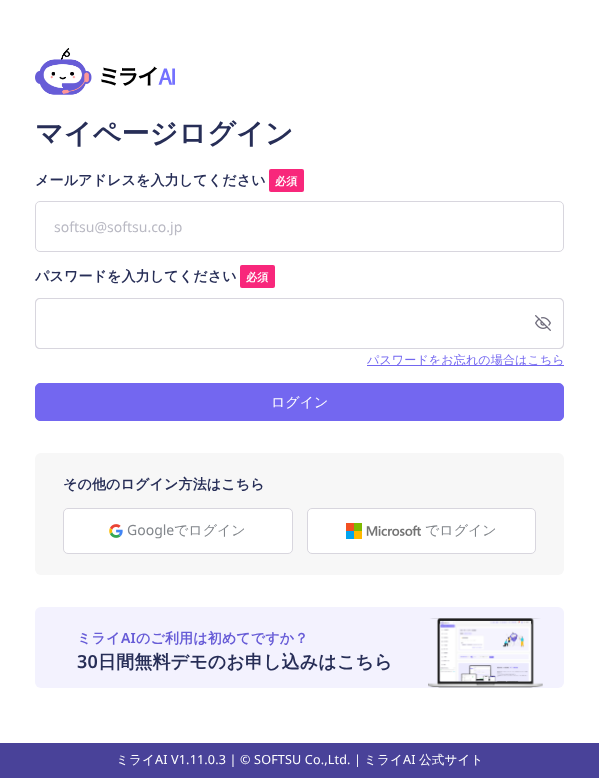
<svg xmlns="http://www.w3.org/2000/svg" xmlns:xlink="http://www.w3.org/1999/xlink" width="599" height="778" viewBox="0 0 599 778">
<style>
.cls-1{font:bold 28px WenQuanYi Zen Hei;letter-spacing:0.15px;fill:#272e57}
.cls-2{font:bold 14px WenQuanYi Zen Hei;letter-spacing:0.15px;fill:#272e57}
.cls-3{font:bold 11px WenQuanYi Zen Hei;letter-spacing:0.15px;fill:#ffffff}
.cls-4{font:14px Noto Sans;fill:#b9b9c3}
.cls-5{font:500 12px WenQuanYi Zen Hei;letter-spacing:0.15px;fill:#7367f0}
.cls-6{font:500 14px WenQuanYi Zen Hei;fill:#ffffff}
.cls-7{font:14px Noto Sans;fill:#82868b}
.cls-8{font:500 14px WenQuanYi Zen Hei;fill:#82868b}
.cls-9{font:bold 14px WenQuanYi Zen Hei;letter-spacing:0.15px;fill:#675cd7}
.cls-10{font:600 14px Noto Sans;letter-spacing:0.15px;fill:#675cd7}
.cls-11{font:600 18px Noto Sans;letter-spacing:0.15px;fill:#272e57}
.cls-12{font:bold 18px WenQuanYi Zen Hei;letter-spacing:0.15px;fill:#272e57}
.cls-13{font:500 12.6px WenQuanYi Zen Hei;letter-spacing:0.15px;fill:#ffffff}
.cls-14{font:12.6px Noto Sans;letter-spacing:0.15px;fill:#ffffff}
</style>
<rect width="100%" height="100%" fill="#ffffff"/>
<image xlink:href="image0.png" x="35" y="48" width="140" height="47"/>
<rect fill="#f8277b" x="269" y="169" width="35" height="23" rx="2"/>
<rect fill="none" stroke="#d8d6de" x="35.5" y="201.5" width="528" height="50" rx="4.5"/>
<rect fill="#f8277b" x="240" y="265" width="35" height="23" rx="2"/>
<path fill="#d8d6de" fill-rule="evenodd" d="M525 298H559C562 298 564 300 564 303V344C564 347 562 349 559 349H525ZM525 299H559C561 299 563 301 563 303V344C563 346 561 348 559 348H525Z"/>
<path fill="#d8d6de" fill-rule="evenodd" d="M40 298H526V349H40C37 349 35 347 35 344V303C35 300 37 298 40 298ZM40 299H526V348H40C38 348 36 346 36 344V303C36 301 38 299 40 299Z"/>
<image xlink:href="image1.png" x="535" y="315" width="16" height="16"/>
<rect fill="#7367f0" x="367" y="365" width="197" height="1"/>
<rect fill="#7367f0" stroke="#7367f0" x="35.5" y="383.5" width="528" height="37" rx="4.5"/>
<rect fill="#f7f7f7" x="35" y="453" width="529" height="122" rx="6"/>
<rect fill="#ffffff" stroke="#d8d6de" x="63.5" y="508.5" width="229" height="45" rx="4.5"/>
<image xlink:href="image2.png" x="109" y="524" width="14" height="14"/>
<rect fill="#ffffff" stroke="#d8d6de" x="307.5" y="508.5" width="228" height="45" rx="4.5"/>
<image xlink:href="image3.png" x="346" y="523" width="75" height="16"/>
<rect fill="#f3f2fe" x="35" y="607" width="529" height="81" rx="6"/>
<image xlink:href="image4.png" x="428" y="618" width="115" height="70"/>
<rect fill="#494299" x="0" y="743" width="599" height="35"/>
<text class="cls-1" x="35" y="143">マイページログイン</text>
<text class="cls-2" x="35" y="185">メールアドレスを入力してください</text>
<text class="cls-3" x="275" y="185">必須</text>
<text class="cls-4" x="54" y="232">softsu@softsu.co.jp</text>
<text class="cls-2" x="35" y="281">パスワードを入力してください</text>
<text class="cls-3" x="246" y="281">必須</text>
<text class="cls-5" x="367" y="364">パスワードをお忘れの場合はこちら</text>
<text class="cls-6" x="271" y="407">ログイン</text>
<text class="cls-2" x="63" y="489">その他のログイン方法はこちら</text>
<text class="cls-7" x="127" y="535">Google</text>
<text class="cls-8" x="174" y="535">でログイン</text>
<text class="cls-8" x="425" y="535">でログイン</text>
<text class="cls-9" x="77" y="643">ミライ</text>
<text class="cls-10" x="121" y="643">AI</text>
<text class="cls-9" x="136" y="643">のご利用は初めてですか？</text>
<text class="cls-11" x="77" y="668">30</text>
<text class="cls-12" x="98" y="668">日間無料デモのお申し込みはこちら</text>
<text class="cls-13" x="116" y="764">ミライ</text>
<text class="cls-14" x="155" y="764">AI V1.11.0.3 | © SOFTSU Co.,Ltd. |</text>
<text class="cls-13" x="364" y="764">ミライ</text>
<text class="cls-14" x="403" y="764">AI</text>
<text class="cls-13" x="419" y="764">公式サイト</text>
</svg>
